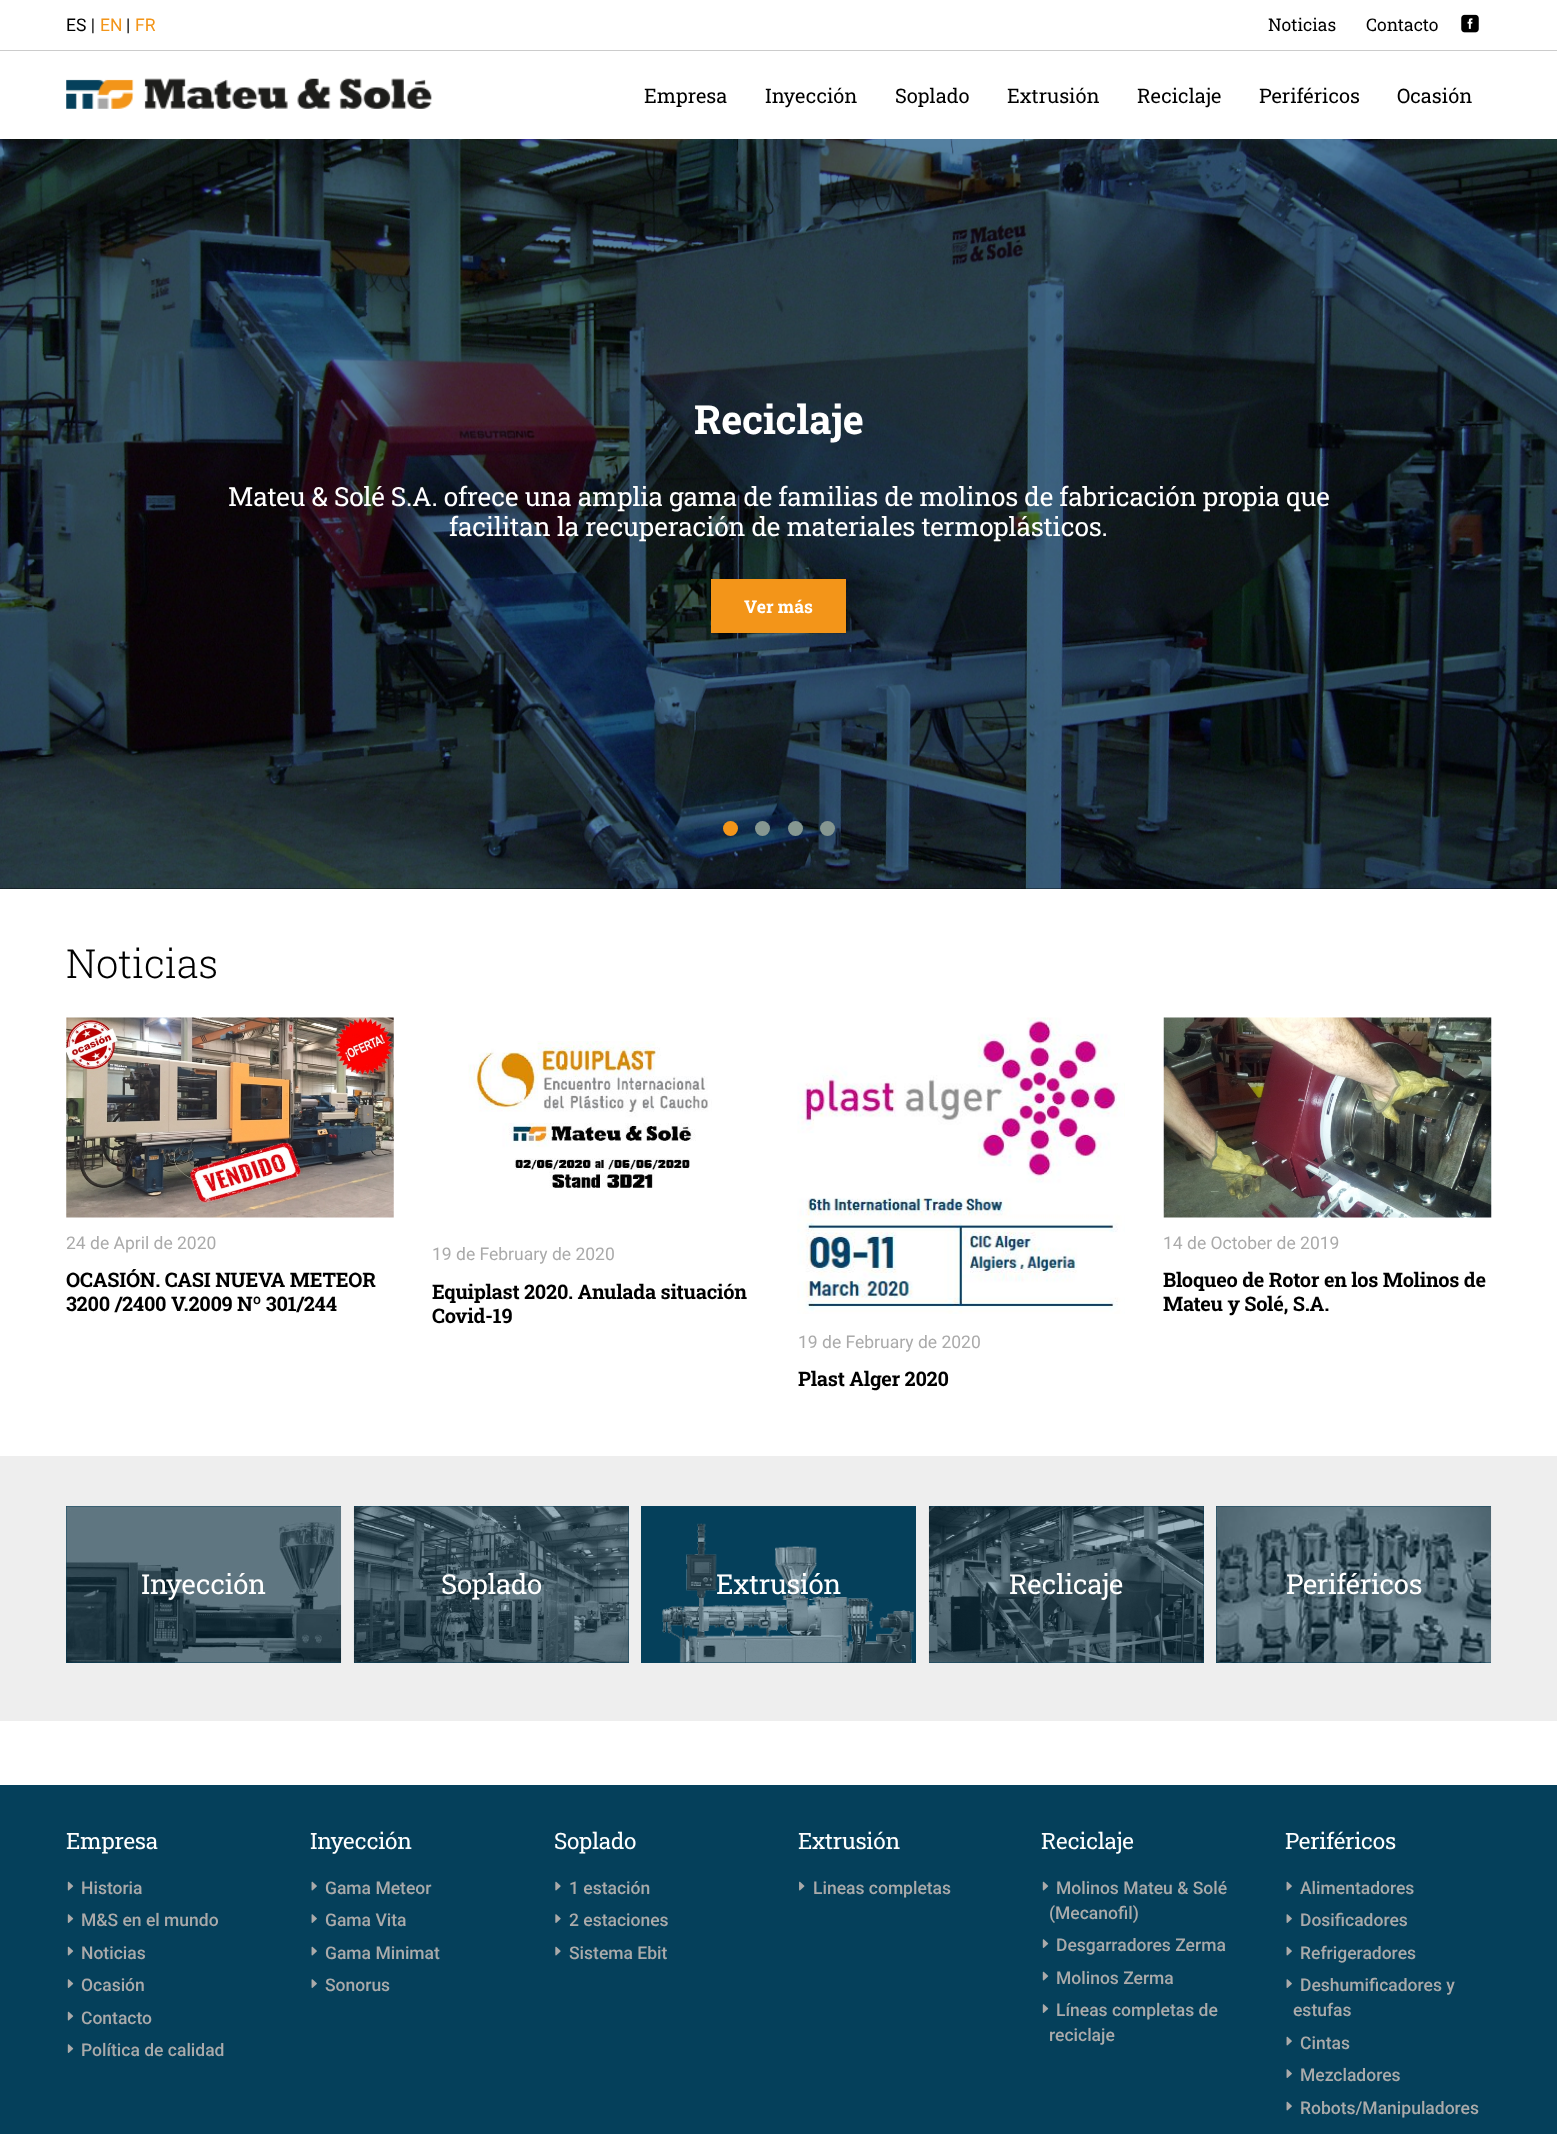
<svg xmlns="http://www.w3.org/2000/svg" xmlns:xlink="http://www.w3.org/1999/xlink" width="1557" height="2134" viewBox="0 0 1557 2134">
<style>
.cls-1{font:17.5px Roboto;fill:#000000}
.cls-2{font:17.5px Roboto;fill:#f39519}
.cls-3{font:17.5px Roboto Slab;fill:#000000}
.cls-4{font:20px Roboto Slab;fill:#000000}
.cls-5{font:bold 40px Roboto Slab;letter-spacing:-0.25px;fill:#ffffff}
.cls-6{font:26.25px Roboto Slab;letter-spacing:-0.25px;fill:#ffffff}
.cls-7{font:bold 17.5px Roboto Slab;fill:#ffffff}
.cls-8{font:300 40px Roboto Slab;letter-spacing:-0.25px;fill:#000000}
.cls-9{font:17.5px Roboto;fill:#aaaaaa}
.cls-10{font:bold 20px Roboto Slab;letter-spacing:-0.25px;fill:#000000}
.cls-11{font:27.5px Roboto Slab;letter-spacing:-0.25px;fill:#ffffff}
.cls-12{font:22.5px Roboto Slab;letter-spacing:-0.25px;fill:#ffffff}
.cls-13{font:500 17.5px Roboto;fill:#aaaaaa}
</style>
<rect width="100%" height="100%" fill="#ffffff"/>
<rect fill="#cccccc" x="0" y="50" width="1557" height="1"/>
<image xlink:href="image0.png" x="1461" y="14" width="18" height="19"/>
<image xlink:href="image1.png" x="66" y="78" width="366" height="31"/>
<rect fill="#000000" x="0" y="888" width="1557" height="1"/>
<image xlink:href="image2.png" x="0" y="139" width="1557" height="750"/>
<rect fill="#000000" fill-opacity="0.1" filter="blur(0.5px)" x="711" y="580" width="135" height="54"/>
<rect fill="#f39519" x="711" y="579" width="135" height="54"/>
<circle fill="#f39519" cx="730.5" cy="828.5" r="7.5"/>
<circle fill="#869791" cx="762.5" cy="828.5" r="7.5"/>
<circle fill="#869791" cx="795.5" cy="828.5" r="7.5"/>
<circle fill="#869791" cx="827.5" cy="828.5" r="7.5"/>
<image xlink:href="image3.png" x="66" y="1017" width="328" height="201"/>
<image xlink:href="image4.png" x="468" y="1041" width="244" height="147"/>
<image xlink:href="image5.png" x="1163" y="1017" width="329" height="201"/>
<image xlink:href="image6.png" x="797" y="1017" width="328" height="297"/>
<rect fill="#eeeeee" x="0" y="1456" width="1557" height="265"/>
<rect fill="#05405b" x="66" y="1506" width="275" height="157"/>
<image xlink:href="image7.png" x="66" y="1506" width="276" height="157"/>
<rect fill="#05405b" x="354" y="1506" width="275" height="157"/>
<image xlink:href="image8.png" x="353" y="1506" width="276" height="157"/>
<rect fill="#05405b" x="641" y="1506" width="275" height="157"/>
<image xlink:href="image9.png" x="662" y="1523" width="252" height="140"/>
<rect fill="#05405b" x="929" y="1506" width="275" height="157"/>
<image xlink:href="image10.png" x="928" y="1506" width="276" height="157"/>
<rect fill="#05405b" x="1216" y="1506" width="275" height="157"/>
<image xlink:href="image11.png" x="1216" y="1506" width="276" height="157"/>
<rect fill="#05405b" x="0" y="1785" width="1557" height="349"/>
<image xlink:href="image12.png" x="67" y="1881" width="7" height="10"/>
<image xlink:href="image13.png" x="67" y="1914" width="7" height="9"/>
<image xlink:href="image12.png" x="67" y="1946" width="7" height="10"/>
<image xlink:href="image13.png" x="67" y="1979" width="7" height="9"/>
<image xlink:href="image12.png" x="67" y="2011" width="7" height="10"/>
<image xlink:href="image13.png" x="67" y="2044" width="7" height="9"/>
<image xlink:href="image14.png" x="311" y="1881" width="6" height="10"/>
<image xlink:href="image15.png" x="311" y="1914" width="6" height="9"/>
<image xlink:href="image14.png" x="311" y="1946" width="6" height="10"/>
<image xlink:href="image15.png" x="311" y="1979" width="6" height="9"/>
<image xlink:href="image16.png" x="555" y="1881" width="6" height="10"/>
<image xlink:href="image17.png" x="555" y="1914" width="6" height="9"/>
<image xlink:href="image16.png" x="555" y="1946" width="6" height="10"/>
<image xlink:href="image18.png" x="799" y="1881" width="6" height="10"/>
<image xlink:href="image12.png" x="1042" y="1881" width="7" height="10"/>
<image xlink:href="image13.png" x="1042" y="1939" width="7" height="9"/>
<image xlink:href="image12.png" x="1042" y="1971" width="7" height="10"/>
<image xlink:href="image13.png" x="1042" y="2004" width="7" height="9"/>
<image xlink:href="image14.png" x="1286" y="1881" width="6" height="10"/>
<image xlink:href="image15.png" x="1286" y="1914" width="6" height="9"/>
<image xlink:href="image14.png" x="1286" y="1946" width="6" height="10"/>
<image xlink:href="image15.png" x="1286" y="1979" width="6" height="9"/>
<image xlink:href="image14.png" x="1286" y="2036" width="6" height="10"/>
<image xlink:href="image15.png" x="1286" y="2069" width="6" height="9"/>
<image xlink:href="image14.png" x="1286" y="2101" width="6" height="10"/>
<text class="cls-1" x="66" y="31">ES |</text>
<text class="cls-2" x="100" y="31">EN</text>
<text class="cls-1" x="126" y="31">|</text>
<text class="cls-2" x="135" y="31">FR</text>
<text class="cls-3" x="1268" y="31">Noticias</text>
<text class="cls-3" x="1366" y="31">Contacto</text>
<text class="cls-4" x="644" y="103">Empresa</text>
<text class="cls-4" x="765" y="103">Inyección</text>
<text class="cls-4" x="895" y="103">Soplado</text>
<text class="cls-4" x="1007" y="103">Extrusión</text>
<text class="cls-4" x="1137" y="103">Reciclaje</text>
<text class="cls-4" x="1259" y="103">Periféricos</text>
<text class="cls-4" x="1397" y="103">Ocasión</text>
<text class="cls-5" x="694" y="434">Reciclaje</text>
<text class="cls-6" x="228" y="506">Mateu &amp; Solé S.A. ofrece una amplia gama de familias de molinos de fabricación propia que</text>
<text class="cls-6" x="449" y="536">facilitan la recuperación de materiales termoplásticos.</text>
<text class="cls-7" x="744" y="613">Ver más</text>
<text class="cls-8" x="66" y="978">Noticias</text>
<text class="cls-9" x="66" y="1249">24 de April de 2020</text>
<text class="cls-10"><tspan x="66" y="1287">OCASIÓN. CASI NUEVA METEOR</tspan><tspan x="66" y="1311">3200 /2400 V.2009 Nº 301/244</tspan></text>
<text class="cls-9" x="432" y="1260">19 de February de 2020</text>
<text class="cls-10"><tspan x="432" y="1299">Equiplast 2020. Anulada situación</tspan><tspan x="432" y="1323">Covid-19</tspan></text>
<text class="cls-9" x="1163" y="1249">14 de October de 2019</text>
<text class="cls-10"><tspan x="1163" y="1287">Bloqueo de Rotor en los Molinos de</tspan><tspan x="1163" y="1311">Mateu y Solé, S.A.</tspan></text>
<text class="cls-9" x="798" y="1348">19 de February de 2020</text>
<text class="cls-10" x="798" y="1386">Plast Alger 2020</text>
<text class="cls-11" x="141" y="1594">Inyección</text>
<text class="cls-11" x="441" y="1594">Soplado</text>
<text class="cls-11" x="716" y="1594">Extrusión</text>
<text class="cls-11" x="1009" y="1594">Reclicaje</text>
<text class="cls-11" x="1286" y="1594">Periféricos</text>
<text class="cls-12" x="66" y="1849">Empresa</text>
<text class="cls-13"><tspan x="81" y="1894">Historia</tspan><tspan x="81" y="1926">M&amp;S en el mundo</tspan><tspan x="81" y="1959">Noticias</tspan><tspan x="81" y="1991">Ocasión</tspan><tspan x="81" y="2024">Contacto</tspan><tspan x="81" y="2056">Política de calidad</tspan></text>
<text class="cls-12" x="310" y="1849">Inyección</text>
<text class="cls-13"><tspan x="325" y="1894">Gama Meteor</tspan><tspan x="325" y="1926">Gama Vita</tspan><tspan x="325" y="1959">Gama Minimat</tspan><tspan x="325" y="1991">Sonorus</tspan></text>
<text class="cls-12" x="554" y="1849">Soplado</text>
<text class="cls-13"><tspan x="569" y="1894">1 estación</tspan><tspan x="569" y="1926">2 estaciones</tspan><tspan x="569" y="1959">Sistema Ebit</tspan></text>
<text class="cls-12" x="798" y="1849">Extrusión</text>
<text class="cls-13" x="813" y="1894">Lineas completas</text>
<text class="cls-12" x="1041" y="1849">Reciclaje</text>
<text class="cls-13" x="1056" y="1894">Molinos Mateu &amp; Solé</text>
<text class="cls-13" x="1049" y="1919">(Mecanofil)</text>
<text class="cls-13"><tspan x="1056" y="1951">Desgarradores Zerma</tspan><tspan x="1056" y="1984">Molinos Zerma</tspan><tspan x="1056" y="2016">Líneas completas de</tspan></text>
<text class="cls-13" x="1049" y="2041">reciclaje</text>
<text class="cls-12" x="1285" y="1849">Periféricos</text>
<text class="cls-13"><tspan x="1300" y="1894">Alimentadores</tspan><tspan x="1300" y="1926">Dosificadores</tspan><tspan x="1300" y="1959">Refrigeradores</tspan><tspan x="1300" y="1991">Deshumificadores y</tspan></text>
<text class="cls-13" x="1293" y="2016">estufas</text>
<text class="cls-13"><tspan x="1300" y="2049">Cintas</tspan><tspan x="1300" y="2081">Mezcladores</tspan><tspan x="1300" y="2114">Robots/Manipuladores</tspan></text>
</svg>
